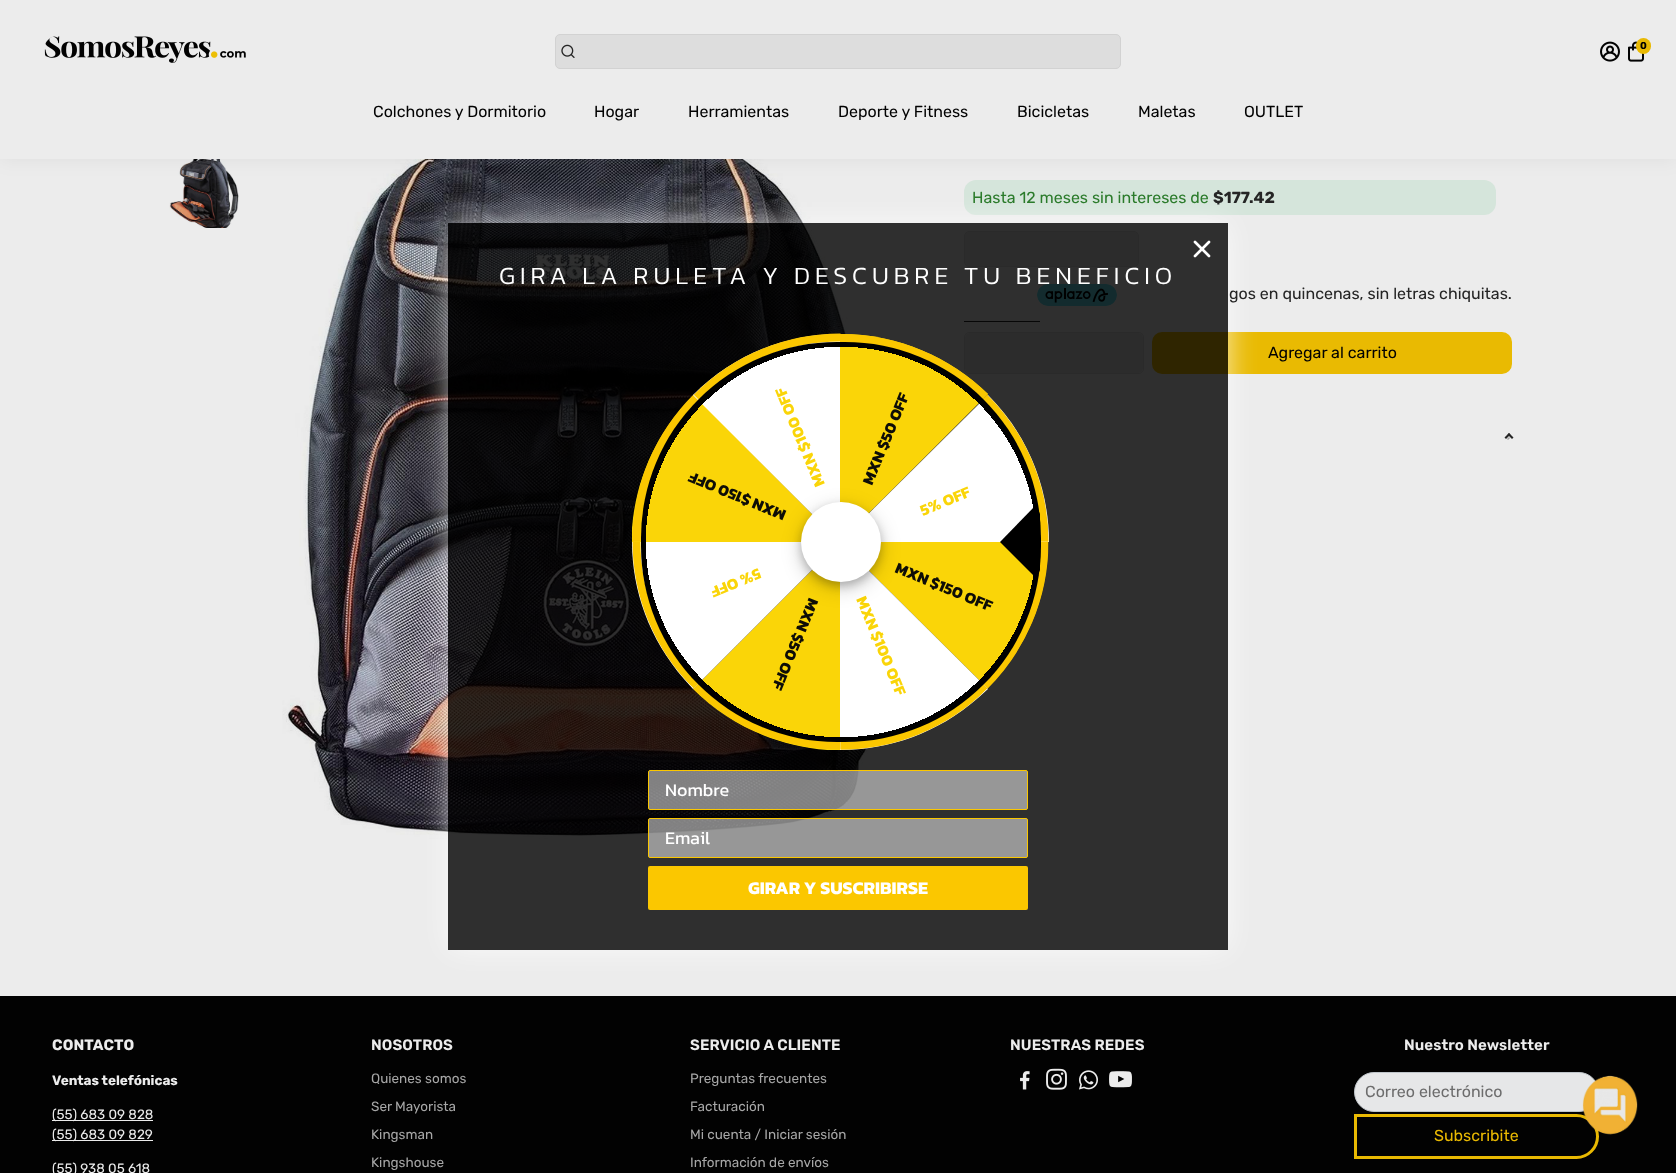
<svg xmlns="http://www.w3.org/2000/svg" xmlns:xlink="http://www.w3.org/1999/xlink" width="1676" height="1173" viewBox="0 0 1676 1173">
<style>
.cls-1{font:bold 10px Rubik;fill:#020202}
.cls-2{font:16px Rubik;fill:#020202}
.cls-3{font:16px Rubik;fill:#2b7b2b}
.cls-4{font:bold 16px Rubik;fill:#252525}
.cls-5{font:16px Rubik;fill:#252525}
.cls-6{font:bold 15px Rubik;letter-spacing:0.1px;fill:#ececec}
.cls-7{font:bold 13.5px Rubik;fill:#ececec}
.cls-8{font:13.5px Rubik;fill:#ececec}
.cls-9{font:600 15px Rubik;letter-spacing:0.1px;fill:#ececec}
.cls-10{font:13.5px Rubik;fill:#a6a6a6}
.cls-11{font:16px Rubik;fill:#6d6d6d}
.cls-12{font:16px Rubik;fill:#e9b902}
.cls-13{font:300 25px Kanit;letter-spacing:5px;fill:#ffffff}
.cls-14{font:bold 16px Kanit;fill:#0e0d07}
.cls-15{font:bold 16px Kanit;fill:#fad508}
.cls-16{font:18px Kanit;fill:#ffffff}
.cls-17{font:bold 18px Kanit;fill:#ffffff}
</style>
<defs>
<clipPath id="clip1"><path d="M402 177H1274V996H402ZM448 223H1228V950H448Z" clip-rule="evenodd"/></clipPath>
<clipPath id="clip2"><path d="M840.5 541.5L987.5 394.5L1134.5 541.5H1048.5Z"/></clipPath>
<clipPath id="clip3"><path d="M840.5 541.5H1048.5V749.5L987.5 688.5Z"/></clipPath>
<clipPath id="clip4"><path d="M840.5 541.5L987.5 688.5L840.5 836V749.5Z"/></clipPath>
<clipPath id="clip5"><path d="M840.5 541.5V749.5H632.5L693.5 688.5Z"/></clipPath>
<clipPath id="clip6"><path d="M840.5 541.5L693.5 688.5L546.5 541.5H632.5Z"/></clipPath>
<clipPath id="clip7"><path d="M840.5 541.5H632.5V333.5L693.5 394.5Z"/></clipPath>
<clipPath id="clip8"><path d="M840.5 541.5L693.5 394.5L840.5 247.5V333.5Z"/></clipPath>
<radialGradient id="g1" gradientUnits="userSpaceOnUse" cx="841" cy="542" r="283"><stop offset="0.69" stop-color="#000000" stop-opacity="0"/><stop offset="0.69" stop-color="#000000"/></radialGradient>
</defs>
<rect width="100%" height="100%" fill="#ececec"/>
<image xlink:href="image4.png" x="169" y="159" width="70" height="69"/>
<image xlink:href="image5.png" x="282" y="159" width="618" height="680"/>
<rect fill="#d5e5db" x="964" y="180" width="532" height="35" rx="12"/>
<rect fill="#020202" fill-opacity="0.06" filter="blur(10px)" x="0" y="0" width="1676" height="159"/>
<rect fill="#ececec" x="0" y="0" width="1676" height="159"/>
<image xlink:href="image0.png" x="44" y="36" width="202" height="27"/>
<rect fill="#dddddd" stroke="#d2d2d2" x="555.5" y="34.5" width="565" height="34" rx="4.5"/>
<image xlink:href="image1.png" x="561" y="44" width="14" height="14"/>
<image xlink:href="image2.png" x="1600" y="41" width="20" height="21"/>
<image xlink:href="image3.png" x="1628" y="41" width="16" height="21"/>
<rect fill="#e9b902" x="1636" y="38" width="15" height="16" rx="7.5"/>
<rect fill="#dddddd" stroke="#d2d2d2" x="964.5" y="231.5" width="174" height="35" rx="4.5"/>
<image xlink:href="image6.png" x="1037" y="284" width="80" height="22"/>
<rect fill="#252525" x="964" y="321" width="76" height="1"/>
<rect fill="none" stroke="#d2d2d2" x="964.5" y="332.5" width="179" height="41" rx="4.5"/>
<path fill="#dddddd" d="M969 333H1013V373H969C967 373 965 371 965 369V337C965 335 967 333 969 333Z"/>
<rect fill="#dddddd" x="1013" y="333" width="80" height="40"/>
<path fill="#dddddd" d="M1093 333H1139C1141 333 1143 335 1143 337V369C1143 371 1141 373 1139 373H1093Z"/>
<rect fill="#e9ba02" stroke="#e9ba02" stroke-width="2" x="1153" y="333" width="358" height="40" rx="9"/>
<path fill="#252525" d="M1504.5 437.5L1509 433L1510.5 434.5L1506 439Z"/>
<path fill="#252525" d="M1507.5 434.5L1509 433L1513.5 437.5L1512 439Z"/>
<path fill="none" stroke="#252525" stroke-width="0.4" stroke-linecap="round" stroke-linejoin="round" d="M1507.5 439H1509V437.5"/>
<rect fill="#020202" x="0" y="996" width="1676" height="177"/>
<rect fill="#ececec" x="52" y="1120" width="101" height="1"/>
<rect fill="#ececec" x="52" y="1140" width="101" height="1"/>
<image xlink:href="image7.png" x="1020" y="1071" width="10" height="19"/>
<image xlink:href="image8.png" x="1046" y="1068" width="21" height="22"/>
<image xlink:href="image9.png" x="1079" y="1070" width="19" height="20"/>
<image xlink:href="image10.png" x="1109" y="1071" width="23" height="17"/>
<rect fill="#e6e7e8" stroke="#bfc5ca" x="1354.5" y="1072.5" width="244" height="39" rx="19.5"/>
<path fill="none" stroke="#e9b902" stroke-width="3" d="M1355.5 1115.5H1576.5C1588 1115.5 1597.5 1125 1597.5 1136.5C1597.5 1148 1588 1157.5 1576.5 1157.5H1355.5Z"/>
<g clip-path="url(#clip1)">
<rect fill="#ffffff" fill-opacity="0.71" filter="blur(15px)" x="448" y="223" width="780" height="727"/>
</g>
<rect fill="#000000" fill-opacity="0.8" x="448" y="223" width="780" height="727"/>
<path fill="none" stroke="#ffffff" stroke-width="2.7" stroke-linecap="round" stroke-linejoin="round" d="M1195 242L1209 256M1195 256L1209 242Z"/>
<path fill="#fad508" d="M841 334H840V542L988 394C950 357 898 334 841 334Z"/>
<path fill="#fbc700" d="M841 334H840V342C893 342 945 363 982 400L988 394C950 357 898 334 841 334Z"/>
<path fill="#fad508" d="M1048 542H840L987 688C1025 651 1048 599 1048 542Z"/>
<path fill="#fad508" d="M840 542V750H827C775 746 728 724 693 689Z"/>
<rect fill="#ffffff" fill-opacity="0.5" stroke="#fbc700" x="648.5" y="770.5" width="379" height="39" rx="1.5"/>
<rect fill="#ffffff" fill-opacity="0.5" stroke="#fbc700" x="648.5" y="818.5" width="379" height="39" rx="1.5"/>
<rect fill="#fbc700" x="648" y="866" width="380" height="44" rx="2"/>
<image xlink:href="image11.png" x="1582" y="1075" width="56" height="60"/>
<text class="cls-1" x="1640" y="49">0</text>
<text class="cls-2" x="373" y="117">Colchones y Dormitorio</text>
<text class="cls-2" x="594" y="117">Hogar</text>
<text class="cls-2" x="688" y="117">Herramientas</text>
<text class="cls-2" x="838" y="117">Deporte y Fitness</text>
<text class="cls-2" x="1017" y="117">Bicicletas</text>
<text class="cls-2" x="1138" y="117">Maletas</text>
<text class="cls-2" x="1244" y="117">OUTLET</text>
<text class="cls-3" x="972" y="203">Hasta 12 meses sin intereses de</text>
<text class="cls-4" x="1213" y="203">$177.42</text>
<text class="cls-5" x="1229" y="299">gos en quincenas, sin letras chiquitas.</text>
<text class="cls-2" x="1268" y="358">Agregar al carrito</text>
<text class="cls-6" x="52" y="1050">CONTACTO</text>
<text class="cls-7" x="52" y="1085">Ventas telefónicas</text>
<text class="cls-8"><tspan x="52" y="1119">(55) 683 09 828</tspan><tspan x="52" y="1139">(55) 683 09 829</tspan></text>
<text class="cls-8" x="52" y="1173">(55) 938 05 618</text>
<text class="cls-9" x="371" y="1050">NOSOTROS</text>
<text class="cls-10" x="371" y="1083">Quienes somos</text>
<text class="cls-10" x="371" y="1111">Ser Mayorista</text>
<text class="cls-10" x="371" y="1139">Kingsman</text>
<text class="cls-10" x="371" y="1167">Kingshouse</text>
<text class="cls-9" x="690" y="1050">SERVICIO A CLIENTE</text>
<text class="cls-10" x="690" y="1083">Preguntas frecuentes</text>
<text class="cls-10" x="690" y="1111">Facturación</text>
<text class="cls-10" x="690" y="1139">Mi cuenta / Iniciar sesión</text>
<text class="cls-10" x="690" y="1167">Información de envíos</text>
<text class="cls-9" x="1010" y="1050">NUESTRAS REDES</text>
<text class="cls-9" x="1404" y="1050">Nuestro Newsletter</text>
<text class="cls-11" x="1365" y="1097">Correo electrónico</text>
<text class="cls-12" x="1434" y="1141">Subscribite</text>
<text class="cls-13" x="499" y="284">GIRA LA RULETA Y DESCUBRE TU BENEFICIO</text>
<text class="cls-14" x="872" y="486" transform="rotate(-67.5 872 486)">MXN $50 OFF</text>
<path fill="#ffffff" d="M988 395L840 542H1049C1049 488 1028 435 988 395Z"/>
<g clip-path="url(#clip2)">
<path fill="none" stroke="#fbc700" stroke-width="8" d="M984.5 397.5C1064.5 477 1064.5 606 984.5 686C905 765.5 776 765.5 696.5 686C616.5 606 616.5 477 696.5 397.5C776 317.5 905 317.5 984.5 397.5Z"/>
</g>
<text class="cls-15" x="923" y="516" transform="rotate(-22.5 923 516)">5% OFF</text>
<g clip-path="url(#clip3)">
<path fill="none" stroke="#fbc700" stroke-width="8" d="M1044.5 541.5C1044.5 654.5 953 745.5 840.5 745.5C728 745.5 636.5 654.5 636.5 541.5C636.5 429 728 337.5 840.5 337.5C953 337.5 1044.5 429 1044.5 541.5Z"/>
</g>
<text class="cls-14" x="894" y="572" transform="rotate(22.5 894 572)">MXN $150 OFF</text>
<path fill="#ffffff" d="M840 542L988 689L978 698C938 733 889 750 840 750Z"/>
<g clip-path="url(#clip4)">
<path fill="none" stroke="#fbc700" stroke-width="8" d="M984.5 686C905 765.5 776 765.5 696.5 686C616.5 606 616.5 477 696.5 397.5C776 317.5 905 317.5 984.5 397.5C1064.5 477 1064.5 606 984.5 686Z"/>
</g>
<g clip-path="url(#clip5)">
<path fill="none" stroke="#fbc700" stroke-width="8" d="M840.5 745.5C728 745.5 636.5 654.5 636.5 541.5C636.5 429 728 337.5 840.5 337.5C953 337.5 1044.5 429 1044.5 541.5C1044.5 654.5 953 745.5 840.5 745.5Z"/>
</g>
<text class="cls-14" x="809" y="597" transform="rotate(112.5 809 597)">MXN $50 OFF</text>
<path fill="#ffffff" d="M840 542L693 689L684 679C649 639 632 590 632 542Z"/>
<g clip-path="url(#clip6)">
<path fill="none" stroke="#fbc700" stroke-width="8" d="M696.5 686C616.5 606 616.5 477 696.5 397.5C776 317.5 905 317.5 984.5 397.5C1064.5 477 1064.5 606 984.5 686C905 765.5 776 765.5 696.5 686Z"/>
</g>
<path fill="#fad508" d="M840 542L694 395C659 429 636 476 632 528V542Z"/>
<g clip-path="url(#clip7)">
<path fill="none" stroke="#fbc700" stroke-width="8" d="M636.5 541.5C636.5 429 728 337.5 840.5 337.5C953 337.5 1044.5 429 1044.5 541.5C1044.5 654.5 953 745.5 840.5 745.5C728 745.5 636.5 654.5 636.5 541.5Z"/>
</g>
<text class="cls-14" x="787" y="511" transform="rotate(-157.5 787 511)">MXN $150 OFF</text>
<path fill="#ffffff" d="M840 542V334C787 334 734 354 693 395Z"/>
<g clip-path="url(#clip8)">
<path fill="none" stroke="#fbc700" stroke-width="8" d="M696.5 397.5C776 317.5 905 317.5 984.5 397.5C1064.5 477 1064.5 606 984.5 686C905 765.5 776 765.5 696.5 686C616.5 606 616.5 477 696.5 397.5Z"/>
</g>
<text class="cls-15" x="825" y="484" transform="rotate(-112.5 825 484)">MXN $100 OFF</text>
<text class="cls-15" x="758" y="568" transform="rotate(157.5 758 568)">5% OFF</text>
<text class="cls-15" x="856" y="599" transform="rotate(67.5 856 599)">MXN $100 OFF</text>
<rect fill="#000000" fill-opacity="0.2" filter="blur(10px)" x="801" y="508" width="80" height="80" rx="40"/>
<rect fill="#000000" fill-opacity="0.2" filter="blur(4px)" x="801" y="506" width="80" height="80" rx="40"/>
<circle fill="#ffffff" cx="841" cy="542" r="40"/>
<path fill="#000000" d="M1040 514C1039 511 1037 508 1035 506L1000 542L1035 577C1037 575 1039 573 1040 570Z"/>
<rect fill="url(#g1)" x="641" y="342" width="400" height="400" rx="196"/>
<text class="cls-16" x="665" y="796">Nombre</text>
<text class="cls-16" x="665" y="844">Email</text>
<text class="cls-17" x="748" y="894">GIRAR Y SUSCRIBIRSE</text>
</svg>
